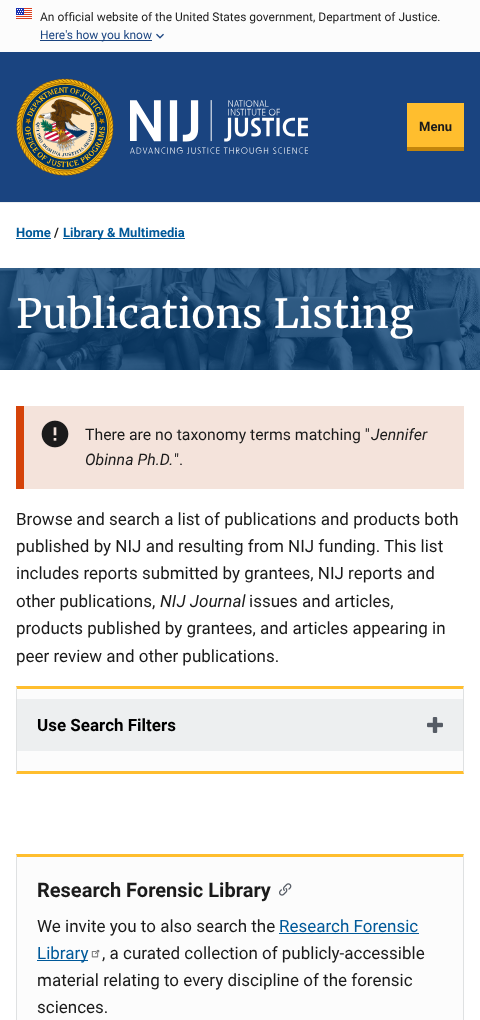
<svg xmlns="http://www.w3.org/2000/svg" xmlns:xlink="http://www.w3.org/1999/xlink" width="480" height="1020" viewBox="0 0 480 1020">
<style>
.cls-1{font:12px Roboto;fill:#1b1b1b}
.cls-2{font:12px Roboto;fill:#1a4480}
.cls-3{font:bold 13px Roboto;fill:#1b1b1b}
.cls-4{font:bold 13px Roboto;fill:#005999}
.cls-5{font:40px Merriweather;fill:#ffffff}
.cls-6{font:15.8px Roboto;fill:#1b1b1b}
.cls-7{font:italic 15.8px Roboto;fill:#1b1b1b}
.cls-8{font:17px Roboto;fill:#1b1b1b}
.cls-9{font:italic 17px Roboto;fill:#1b1b1b}
.cls-10{font:bold 17px Roboto;fill:#000000}
.cls-11{font:bold 20px Roboto;fill:#1b1b1b}
.cls-12{font:17px Roboto;fill:#005999}
</style>
<rect width="100%" height="100%" fill="#ffffff"/>
<rect fill="#fcfcfc" x="0" y="0" width="480" height="52"/>
<image xlink:href="image0.png" x="16" y="8" width="16" height="11"/>
<rect fill="#1a4480" x="40" y="40" width="112" height="1"/>
<image xlink:href="image1.png" x="156" y="33" width="8" height="6"/>
<rect fill="#1a4480" x="0" y="52" width="480" height="150"/>
<rect fill="#edeff0" x="0" y="202" width="480" height="1"/>
<image xlink:href="image2.png" x="16" y="78" width="98" height="98"/>
<image xlink:href="image3.png" x="130" y="100" width="178" height="54"/>
<rect fill="#ffbe2e" x="407" y="103" width="57" height="44"/>
<rect fill="#c2850c" x="407" y="147" width="57" height="4"/>
<rect fill="#005999" x="16" y="238" width="35" height="1"/>
<rect fill="#005999" x="63" y="238" width="122" height="1"/>
<image xlink:href="image4.png" x="0" y="268" width="480" height="102"/>
<rect fill="#f4e3db" x="24" y="406" width="440" height="83"/>
<rect fill="#d54309" x="16" y="406" width="8" height="83"/>
<image xlink:href="image5.png" x="41" y="420" width="28" height="28"/>
<rect fill="#fcfcfc" x="17" y="689" width="446" height="82"/>
<path fill="#ffbe2e" d="M16 686H464L463 689H17Z"/>
<path fill="#dfe1e2" d="M464 686V774L463 771V689Z"/>
<path fill="#ffbe2e" d="M464 774H16L17 771H463Z"/>
<path fill="#dfe1e2" d="M16 774V686L17 689V771Z"/>
<rect fill="#edeff0" x="17" y="699" width="446" height="52"/>
<image xlink:href="image6.png" x="427" y="717" width="16" height="16"/>
<rect fill="#fcfcfc" x="17" y="857" width="446" height="163"/>
<path fill="#ffbe2e" d="M16 854H464L463 857H17Z"/>
<path fill="#dfe1e2" d="M464 854V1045L463 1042V857Z"/>
<path fill="#dfe1e2" d="M16 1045V854L17 857V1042Z"/>
<image xlink:href="image7.png" x="279" y="883" width="13" height="13"/>
<rect fill="#005999" x="279" y="933" width="140" height="1"/>
<rect fill="#005999" x="37" y="960" width="51" height="1"/>
<image xlink:href="image8.png" x="91" y="949" width="9" height="9"/>
<text class="cls-1" x="40" y="21">An official website of the United States government, Department of Justice.</text>
<text class="cls-2" x="40" y="39">Here's how you know</text>
<text class="cls-3" x="419" y="131">Menu</text>
<text class="cls-4" x="16" y="237">Home</text>
<text class="cls-3" x="54" y="237">/</text>
<text class="cls-4" x="63" y="237">Library &amp; Multimedia</text>
<text class="cls-5" x="16" y="328">Publications Listing</text>
<text class="cls-6" x="85" y="440">There are no taxonomy terms matching "</text>
<text class="cls-7" x="371" y="440">Jennifer</text>
<text class="cls-7" x="85" y="465">Obinna Ph.D.</text>
<text class="cls-6" x="174" y="465">".</text>
<text class="cls-8"><tspan x="16" y="525">Browse and search a list of publications and products both</tspan><tspan x="16" y="552">published by NIJ and resulting from NIJ funding. This list</tspan><tspan x="16" y="579">includes reports submitted by grantees, NIJ reports and</tspan><tspan x="16" y="607">other publications,</tspan></text>
<text class="cls-9" x="160" y="607">NIJ Journal</text>
<text class="cls-8" x="249" y="607">issues and articles,</text>
<text class="cls-8"><tspan x="16" y="634">products published by grantees, and articles appearing in</tspan><tspan x="16" y="662">peer review and other publications.</tspan></text>
<text class="cls-10" x="37" y="731">Use Search Filters</text>
<text class="cls-11" x="37" y="897">Research Forensic Library</text>
<text class="cls-8" x="37" y="932">We invite you to also search the</text>
<text class="cls-12" x="279" y="932">Research Forensic</text>
<text class="cls-12" x="37" y="959">Library</text>
<text class="cls-8" x="102" y="959">, a curated collection of publicly-accessible</text>
<text class="cls-8"><tspan x="37" y="986">material relating to every discipline of the forensic</tspan><tspan x="37" y="1013">sciences.</tspan></text>
</svg>
